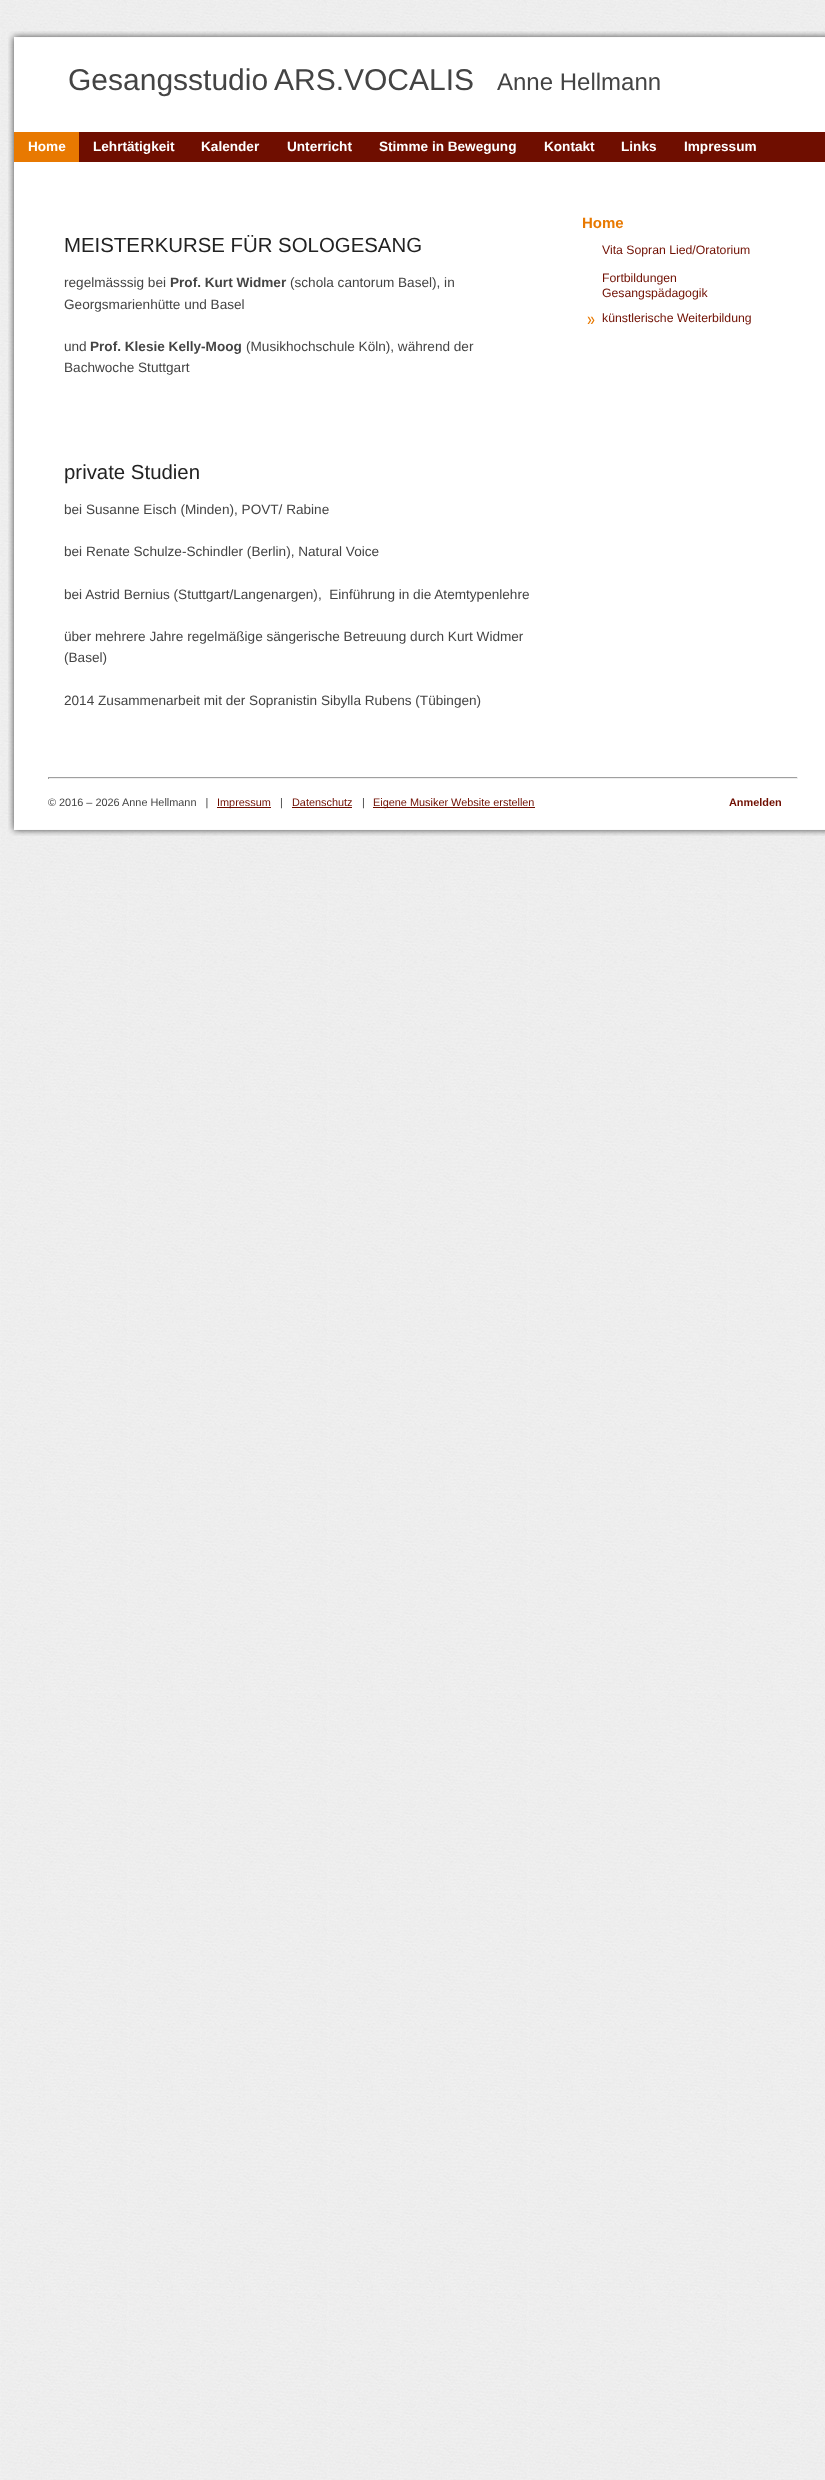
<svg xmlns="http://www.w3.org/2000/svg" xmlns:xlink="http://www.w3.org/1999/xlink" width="825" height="2480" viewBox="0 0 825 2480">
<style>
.cls-1{font:30px Liberation Sans;fill:#444444}
.cls-2{font:24px Liberation Sans;fill:#444444}
.cls-3{font:bold 13.6px Liberation Sans;fill:#ffffff}
.cls-4{font:20.4px Liberation Sans;fill:#222222}
.cls-5{font:13.6px Liberation Sans;fill:#444444}
.cls-6{font:bold 13.6px Liberation Sans;fill:#444444}
.cls-7{font:bold 15px Liberation Sans;fill:#e87901}
.cls-8{font:12.25px Liberation Sans;fill:#6f0e00}
.cls-9{font:10.9px Liberation Sans;fill:#444444}
.cls-10{font:10.9px Liberation Sans;fill:#6f0e00}
.cls-11{font:bold 10.9px Liberation Sans;fill:#6f0e00}
</style>
<rect width="100%" height="100%" fill="#ffffff"/>
<image xlink:href="image0.png" x="0" y="0" width="825" height="2480"/>
<image xlink:href="image1.png" x="8" y="31" width="817" height="101"/>
<image xlink:href="image2.png" x="8" y="132" width="817" height="640"/>
<rect fill="#6f0e00" x="79" y="132" width="746" height="30"/>
<rect fill="#e87901" x="14" y="132" width="65" height="30"/>
<image xlink:href="image3.png" x="587" y="316" width="8" height="8"/>
<image xlink:href="image4.png" x="8" y="772" width="817" height="64"/>
<rect fill="#9f9f9f" x="48" y="777" width="750" height="1"/>
<rect fill="#eeeeee" x="797" y="777" width="1" height="2"/>
<rect fill="#eeeeee" x="48" y="778" width="750" height="1"/>
<rect fill="#9f9f9f" x="48" y="777" width="1" height="2"/>
<rect fill="#6f0e00" x="217" y="807" width="54" height="1"/>
<rect fill="#6f0e00" x="292" y="807" width="60" height="1"/>
<rect fill="#6f0e00" x="373" y="807" width="162" height="1"/>
<text class="cls-1" x="68" y="90">Gesangsstudio</text>
<text class="cls-1" x="274" y="90">ARS.VOCALIS</text>
<text class="cls-2" x="497" y="90">Anne Hellmann</text>
<text class="cls-3" x="28" y="151">Home</text>
<text class="cls-3" x="93" y="151">Lehrtätigkeit</text>
<text class="cls-3" x="201" y="151">Kalender</text>
<text class="cls-3" x="287" y="151">Unterricht</text>
<text class="cls-3" x="379" y="151">Stimme in Bewegung</text>
<text class="cls-3" x="544" y="151">Kontakt</text>
<text class="cls-3" x="621" y="151">Links</text>
<text class="cls-3" x="684" y="151">Impressum</text>
<text class="cls-4" x="64" y="252">MEISTERKURSE FÜR SOLOGESANG</text>
<text class="cls-5" x="64" y="287">regelmässsig bei</text>
<text class="cls-6" x="170" y="287">Prof. Kurt Widmer</text>
<text class="cls-5" x="290" y="287">(schola cantorum Basel), in</text>
<text class="cls-5" x="64" y="309">Georgsmarienhütte und Basel</text>
<text class="cls-5" x="64" y="351">und</text>
<text class="cls-6" x="90" y="351">Prof. Klesie Kelly-Moog</text>
<text class="cls-5" x="246" y="351">(Musikhochschule Köln), während der</text>
<text class="cls-5" x="64" y="372">Bachwoche Stuttgart</text>
<text class="cls-4" x="64" y="479">private Studien</text>
<text class="cls-5" x="64" y="514">bei Susanne Eisch (Minden), POVT/ Rabine</text>
<text class="cls-5" x="64" y="556">bei Renate Schulze-Schindler (Berlin), Natural Voice</text>
<text class="cls-5" xml:space="preserve" x="64" y="599">bei Astrid Bernius (Stuttgart/Langenargen),  Einführung in die Atemtypenlehre</text>
<text class="cls-5"><tspan x="64" y="641">über mehrere Jahre regelmäßige sängerische Betreuung durch Kurt Widmer</tspan><tspan x="64" y="662">(Basel)</tspan></text>
<text class="cls-5" x="64" y="705">2014 Zusammenarbeit mit der Sopranistin Sibylla Rubens (Tübingen)</text>
<text class="cls-7" x="582" y="228">Home</text>
<text class="cls-8" x="602" y="254">Vita Sopran Lied/Oratorium</text>
<text class="cls-8"><tspan x="602" y="282">Fortbildungen</tspan><tspan x="602" y="297">Gesangspädagogik</tspan></text>
<text class="cls-8" x="602" y="322">künstlerische Weiterbildung</text>
<text class="cls-9" x="48" y="806">© 2016 – 2026</text>
<text class="cls-9" xml:space="preserve" x="122" y="806">Anne Hellmann   |</text>
<text class="cls-10" x="217" y="806">Impressum</text>
<text class="cls-9" x="280" y="806">|</text>
<text class="cls-10" x="292" y="806">Datenschutz</text>
<text class="cls-9" x="362" y="806">|</text>
<text class="cls-10" x="373" y="806">Eigene Musiker Website erstellen</text>
<text class="cls-11" x="729" y="806">Anmelden</text>
</svg>
